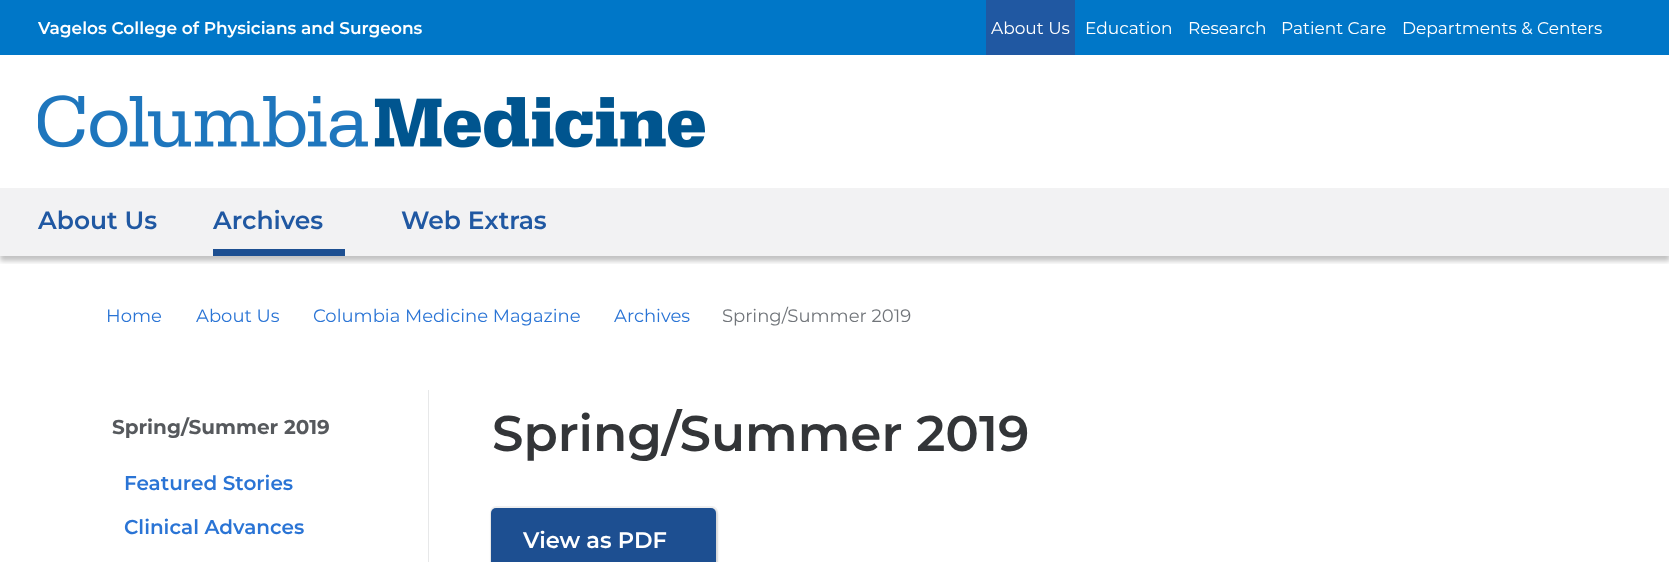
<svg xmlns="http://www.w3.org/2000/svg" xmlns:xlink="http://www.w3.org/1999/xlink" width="1669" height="562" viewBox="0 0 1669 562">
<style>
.cls-1{font:600 17px Montserrat;fill:#ffffff}
.cls-2{font:17px Montserrat;fill:#ffffff}
.cls-3{font:600 25px Montserrat;fill:#2058a2}
.cls-4{font:18px Montserrat;fill:#2a74d5}
.cls-5{font:18px Montserrat;fill:#71757a}
.cls-6{font:bold 20px Montserrat;fill:#56595d}
.cls-7{font:600 20px Montserrat;fill:#2a74d5}
.cls-8{font:600 50px Montserrat;fill:#333538}
.cls-9{font:600 22.5px Montserrat;fill:#ffffff}
</style>
<defs>
<clipPath id="clip1"><rect x="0" y="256" width="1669" height="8"/></clipPath>
</defs>
<rect width="100%" height="100%" fill="#ffffff"/>
<g clip-path="url(#clip1)">
<rect fill="#000000" fill-opacity="0.24" filter="blur(2.5px)" x="0" y="5" width="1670" height="256"/>
</g>
<rect fill="#0077c8" x="0" y="0" width="1669" height="55"/>
<rect fill="#2058a2" x="986" y="0" width="89" height="55"/>
<image xlink:href="image0.png" x="38" y="95" width="667" height="53"/>
<rect fill="#f2f2f3" x="0" y="188" width="1669" height="68"/>
<rect fill="#1d4f91" x="213" y="249" width="132" height="7"/>
<rect fill="#e7e8e9" x="428" y="390" width="1" height="172"/>
<rect fill="#000000" fill-opacity="0.06" filter="blur(0.5px)" x="490" y="506" width="228" height="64" rx="6"/>
<rect fill="#000000" fill-opacity="0.1" filter="blur(1px)" x="491" y="509" width="227" height="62" rx="6"/>
<rect fill="#1d4f91" x="491" y="508" width="225" height="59" rx="5"/>
<text class="cls-1" x="38" y="34">Vagelos College of Physicians and Surgeons</text>
<text class="cls-2" x="991" y="34">About Us</text>
<text class="cls-2" x="1085" y="34">Education</text>
<text class="cls-2" x="1188" y="34">Research</text>
<text class="cls-2" x="1281" y="34">Patient Care</text>
<text class="cls-2" x="1402" y="34">Departments &amp; Centers</text>
<text class="cls-3" x="38" y="229">About Us</text>
<text class="cls-3" x="213" y="229">Archives</text>
<text class="cls-3" x="401" y="229">Web Extras</text>
<text class="cls-4" x="106" y="322">Home</text>
<text class="cls-4" x="196" y="322">About Us</text>
<text class="cls-4" x="313" y="322">Columbia Medicine Magazine</text>
<text class="cls-4" x="614" y="322">Archives</text>
<text class="cls-5" x="722" y="322">Spring/Summer 2019</text>
<text class="cls-6" x="112" y="434">Spring/Summer 2019</text>
<text class="cls-7" x="124" y="490">Featured Stories</text>
<text class="cls-7" x="124" y="534">Clinical Advances</text>
<text class="cls-8" x="492" y="451">Spring/Summer 2019</text>
<text class="cls-9" x="523" y="548">View as PDF</text>
</svg>
